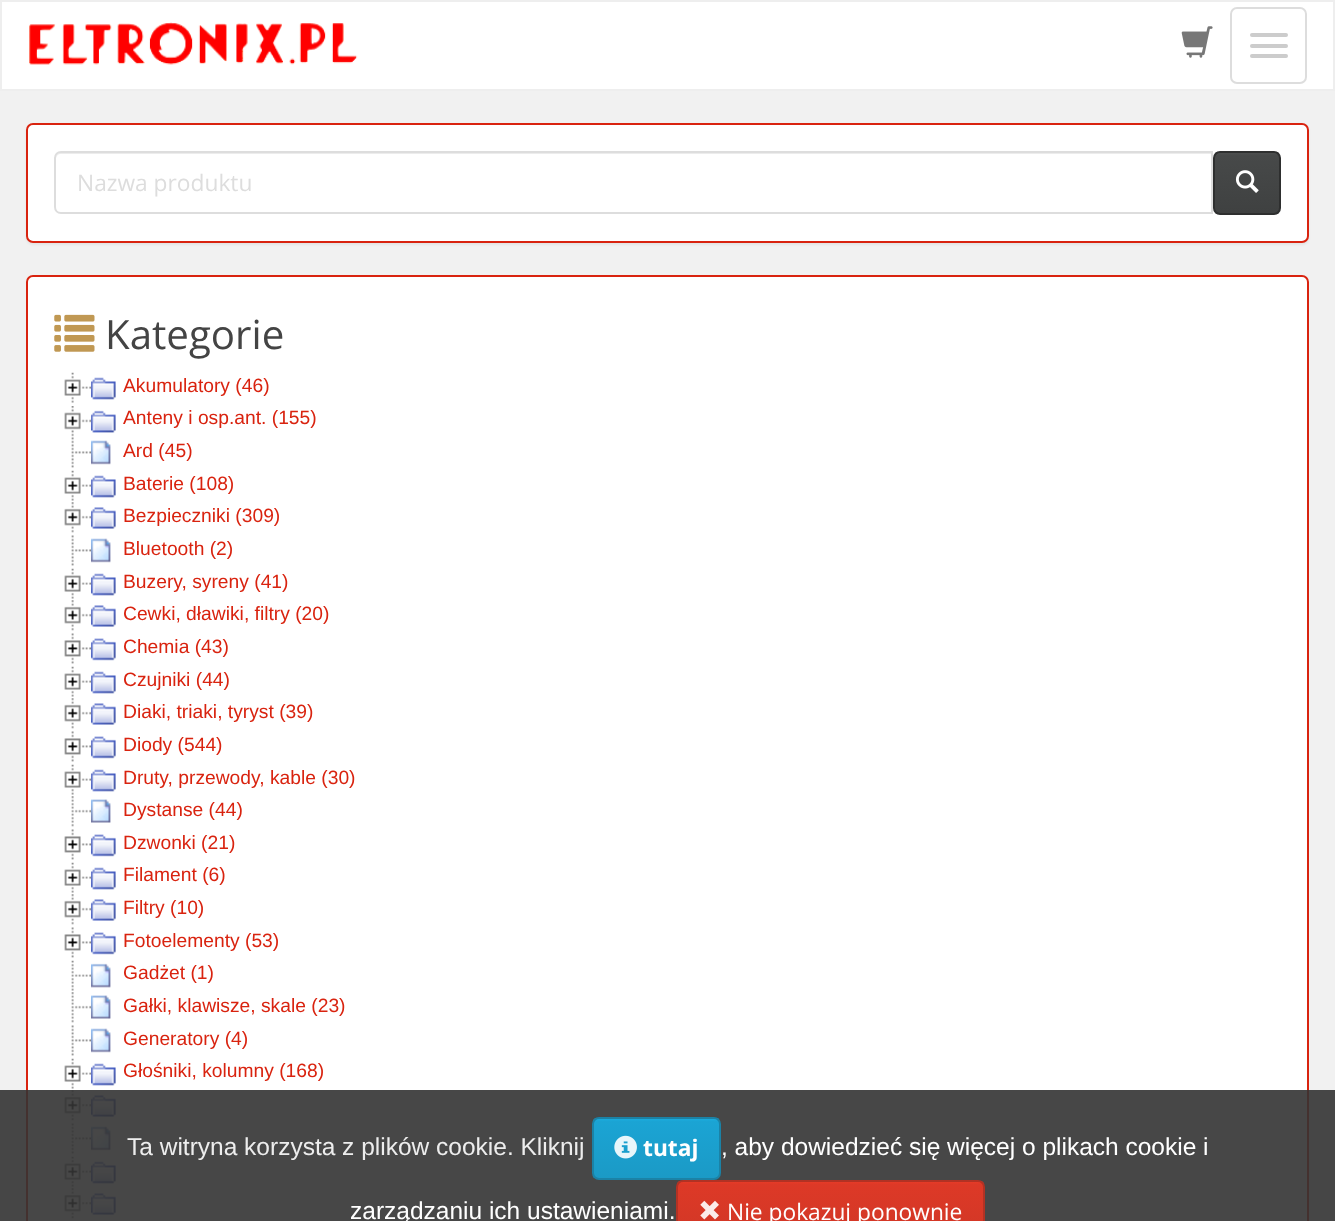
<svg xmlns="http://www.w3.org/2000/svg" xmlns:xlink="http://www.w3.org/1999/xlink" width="1335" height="1221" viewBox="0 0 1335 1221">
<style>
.cls-1{font:22.75px Open Sans;fill:#dddddd}
.cls-2{font:40.25px Open Sans;fill:#444444}
.cls-3{font:19.25px Liberation Sans;fill:#d9230f}
.cls-4{font:24.5px Liberation Sans;fill:#ededed}
.cls-5{font:bold 22.75px Open Sans;fill:#ffffff}
.cls-6{font:24.5px Liberation Sans;fill:#ffffff}
.cls-7{font:22.75px Open Sans;fill:#ffffff}
</style>
<defs>
<clipPath id="clip1"><rect x="1213" y="151" width="68" height="64" rx="7"/></clipPath>
<linearGradient id="g1" gradientUnits="userSpaceOnUse" x1="1247" y1="152" x2="1247" y2="214"><stop offset="0" stop-color="#4f5151"/><stop offset="0.06" stop-color="#474949"/><stop offset="1" stop-color="#3f4141"/></linearGradient>
<clipPath id="clip2"><rect x="592" y="1117" width="129" height="63" rx="7"/></clipPath>
<linearGradient id="g2" gradientUnits="userSpaceOnUse" x1="656" y1="1118" x2="656" y2="1178"><stop offset="0" stop-color="#1baee1"/><stop offset="0.06" stop-color="#1ba4d4"/><stop offset="1" stop-color="#1b9ac6"/></linearGradient>
<clipPath id="clip3"><rect x="676" y="1180" width="309" height="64" rx="7"/></clipPath>
<linearGradient id="g3" gradientUnits="userSpaceOnUse" x1="830" y1="1181" x2="830" y2="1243"><stop offset="0" stop-color="#e93b28"/><stop offset="0.06" stop-color="#dd3927"/><stop offset="1" stop-color="#d03726"/></linearGradient>
</defs>
<rect width="100%" height="100%" fill="#f1f1f1"/>
<rect fill="#ffffff" stroke="#eeeeee" stroke-width="2" x="1" y="1" width="1333" height="89"/>
<image xlink:href="image0.png" x="29" y="22" width="329" height="43"/>
<image xlink:href="image1.png" x="1181" y="26" width="32" height="32"/>
<rect fill="none" stroke="#dddddd" stroke-width="2" x="1231" y="8" width="75" height="75" rx="6"/>
<rect fill="#cccccc" x="1250" y="33" width="38" height="4" rx="2"/>
<rect fill="#cccccc" x="1250" y="44" width="38" height="4" rx="2"/>
<rect fill="#cccccc" x="1250" y="54" width="38" height="4" rx="2"/>
<rect fill="#000000" fill-opacity="0.05" filter="blur(1px)" x="26" y="124" width="1283" height="121" rx="7"/>
<rect fill="#ffffff" stroke="#d9230f" stroke-width="2" x="27" y="124" width="1281" height="118" rx="6"/>
<path fill="#ececec" d="M61 154H1211V152H61C58 152 56 154 56 157V159C56 156 58 154 61 154Z"/>
<path fill="none" stroke="#dddddd" stroke-width="2" d="M61 152H1212V213H61C57.5 213 55 210.5 55 207V158C55 154.5 57.5 152 61 152Z"/>
<g clip-path="url(#clip1)">
<rect fill="url(#g1)" x="1215" y="152" width="64" height="62"/>
</g>
<rect fill="none" stroke="#2e2f2f" stroke-width="2" x="1214" y="152" width="66" height="62" rx="6"/>
<image xlink:href="image2.png" x="1235" y="170" width="24" height="23"/>
<rect fill="#ffffff" stroke="#d9230f" stroke-width="2" x="27" y="276" width="1281" height="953" rx="6"/>
<image xlink:href="image3.png" x="54" y="314" width="41" height="38"/>
<image xlink:href="image4.png" x="64" y="372" width="27" height="31"/>
<image xlink:href="image5.png" x="91" y="377" width="25" height="23"/>
<image xlink:href="image6.png" x="64" y="406" width="27" height="31"/>
<image xlink:href="image7.png" x="91" y="410" width="25" height="23"/>
<image xlink:href="image8.png" x="71" y="437" width="20" height="31"/>
<image xlink:href="image9.png" x="91" y="440" width="20" height="25"/>
<image xlink:href="image4.png" x="64" y="470" width="27" height="31"/>
<image xlink:href="image5.png" x="91" y="475" width="25" height="23"/>
<image xlink:href="image10.png" x="64" y="502" width="27" height="31"/>
<image xlink:href="image11.png" x="91" y="507" width="25" height="22"/>
<image xlink:href="image8.png" x="71" y="535" width="20" height="31"/>
<image xlink:href="image9.png" x="91" y="538" width="20" height="25"/>
<image xlink:href="image4.png" x="64" y="568" width="27" height="31"/>
<image xlink:href="image5.png" x="91" y="573" width="25" height="23"/>
<image xlink:href="image10.png" x="64" y="600" width="27" height="31"/>
<image xlink:href="image11.png" x="91" y="605" width="25" height="22"/>
<image xlink:href="image12.png" x="64" y="633" width="27" height="31"/>
<image xlink:href="image13.png" x="91" y="638" width="25" height="23"/>
<image xlink:href="image4.png" x="64" y="666" width="27" height="31"/>
<image xlink:href="image5.png" x="91" y="671" width="25" height="23"/>
<image xlink:href="image10.png" x="64" y="698" width="27" height="31"/>
<image xlink:href="image11.png" x="91" y="703" width="25" height="22"/>
<image xlink:href="image12.png" x="64" y="731" width="27" height="31"/>
<image xlink:href="image13.png" x="91" y="736" width="25" height="23"/>
<image xlink:href="image4.png" x="64" y="764" width="27" height="31"/>
<image xlink:href="image5.png" x="91" y="769" width="25" height="23"/>
<image xlink:href="image14.png" x="71" y="796" width="20" height="31"/>
<image xlink:href="image15.png" x="91" y="799" width="20" height="24"/>
<image xlink:href="image12.png" x="64" y="829" width="27" height="31"/>
<image xlink:href="image13.png" x="91" y="834" width="25" height="23"/>
<image xlink:href="image4.png" x="64" y="862" width="27" height="31"/>
<image xlink:href="image5.png" x="91" y="867" width="25" height="23"/>
<image xlink:href="image10.png" x="64" y="894" width="27" height="31"/>
<image xlink:href="image11.png" x="91" y="899" width="25" height="22"/>
<image xlink:href="image12.png" x="64" y="927" width="27" height="31"/>
<image xlink:href="image13.png" x="91" y="932" width="25" height="23"/>
<image xlink:href="image16.png" x="71" y="960" width="20" height="31"/>
<image xlink:href="image17.png" x="91" y="963" width="20" height="25"/>
<image xlink:href="image14.png" x="71" y="992" width="20" height="31"/>
<image xlink:href="image15.png" x="91" y="995" width="20" height="24"/>
<image xlink:href="image8.png" x="71" y="1025" width="20" height="31"/>
<image xlink:href="image9.png" x="91" y="1028" width="20" height="25"/>
<image xlink:href="image4.png" x="64" y="1058" width="27" height="31"/>
<image xlink:href="image5.png" x="91" y="1063" width="25" height="23"/>
<image xlink:href="image10.png" x="64" y="1090" width="27" height="31"/>
<image xlink:href="image11.png" x="91" y="1095" width="25" height="22"/>
<image xlink:href="image8.png" x="71" y="1123" width="20" height="31"/>
<image xlink:href="image9.png" x="91" y="1126" width="20" height="25"/>
<image xlink:href="image4.png" x="64" y="1156" width="27" height="31"/>
<image xlink:href="image5.png" x="91" y="1161" width="25" height="23"/>
<image xlink:href="image10.png" x="64" y="1188" width="27" height="31"/>
<image xlink:href="image11.png" x="91" y="1193" width="25" height="22"/>
<rect fill="#333333" fill-opacity="0.9" x="0" y="1090" width="1335" height="131"/>
<g clip-path="url(#clip2)">
<rect fill="url(#g2)" x="593" y="1118" width="126" height="60"/>
</g>
<rect fill="none" stroke="#1b82a6" stroke-width="2" x="593" y="1118" width="127" height="61" rx="6"/>
<image xlink:href="image18.png" x="614" y="1135" width="23" height="24"/>
<g clip-path="url(#clip3)">
<rect fill="url(#g3)" x="677" y="1181" width="307" height="40"/>
</g>
<rect fill="none" stroke="#b23224" stroke-width="2" x="677" y="1181" width="307" height="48" rx="6"/>
<image xlink:href="image19.png" x="700" y="1200" width="19" height="20"/>
<text class="cls-1" x="77" y="191">Nazwa produktu</text>
<text class="cls-2" x="105" y="349">Kategorie</text>
<text class="cls-3"><tspan x="123" y="392">Akumulatory (46)</tspan><tspan x="123" y="424">Anteny i osp.ant. (155)</tspan><tspan x="123" y="457">Ard (45)</tspan><tspan x="123" y="490">Baterie (108)</tspan><tspan x="123" y="522">Bezpieczniki (309)</tspan><tspan x="123" y="555">Bluetooth (2)</tspan><tspan x="123" y="588">Buzery, syreny (41)</tspan><tspan x="123" y="620">Cewki, dławiki, filtry (20)</tspan><tspan x="123" y="653">Chemia (43)</tspan><tspan x="123" y="686">Czujniki (44)</tspan><tspan x="123" y="718">Diaki, triaki, tyryst (39)</tspan><tspan x="123" y="751">Diody (544)</tspan><tspan x="123" y="784">Druty, przewody, kable (30)</tspan><tspan x="123" y="816">Dystanse (44)</tspan><tspan x="123" y="849">Dzwonki (21)</tspan><tspan x="123" y="881">Filament (6)</tspan><tspan x="123" y="914">Filtry (10)</tspan><tspan x="123" y="947">Fotoelementy (53)</tspan><tspan x="123" y="979">Gadżet (1)</tspan><tspan x="123" y="1012">Gałki, klawisze, skale (23)</tspan><tspan x="123" y="1045">Generatory (4)</tspan><tspan x="123" y="1077">Głośniki, kolumny (168)</tspan></text>
<text class="cls-4" x="127" y="1155">Ta witryna korzysta z plików cookie. Kliknij</text>
<text class="cls-5" x="643" y="1156">tutaj</text>
<text class="cls-6" x="721" y="1155">, aby dowiedzieć się więcej o plikach cookie i</text>
<text class="cls-6" x="350" y="1219">zarządzaniu ich ustawieniami.</text>
<text class="cls-7" x="727" y="1220">Nie pokazuj ponownie</text>
</svg>
